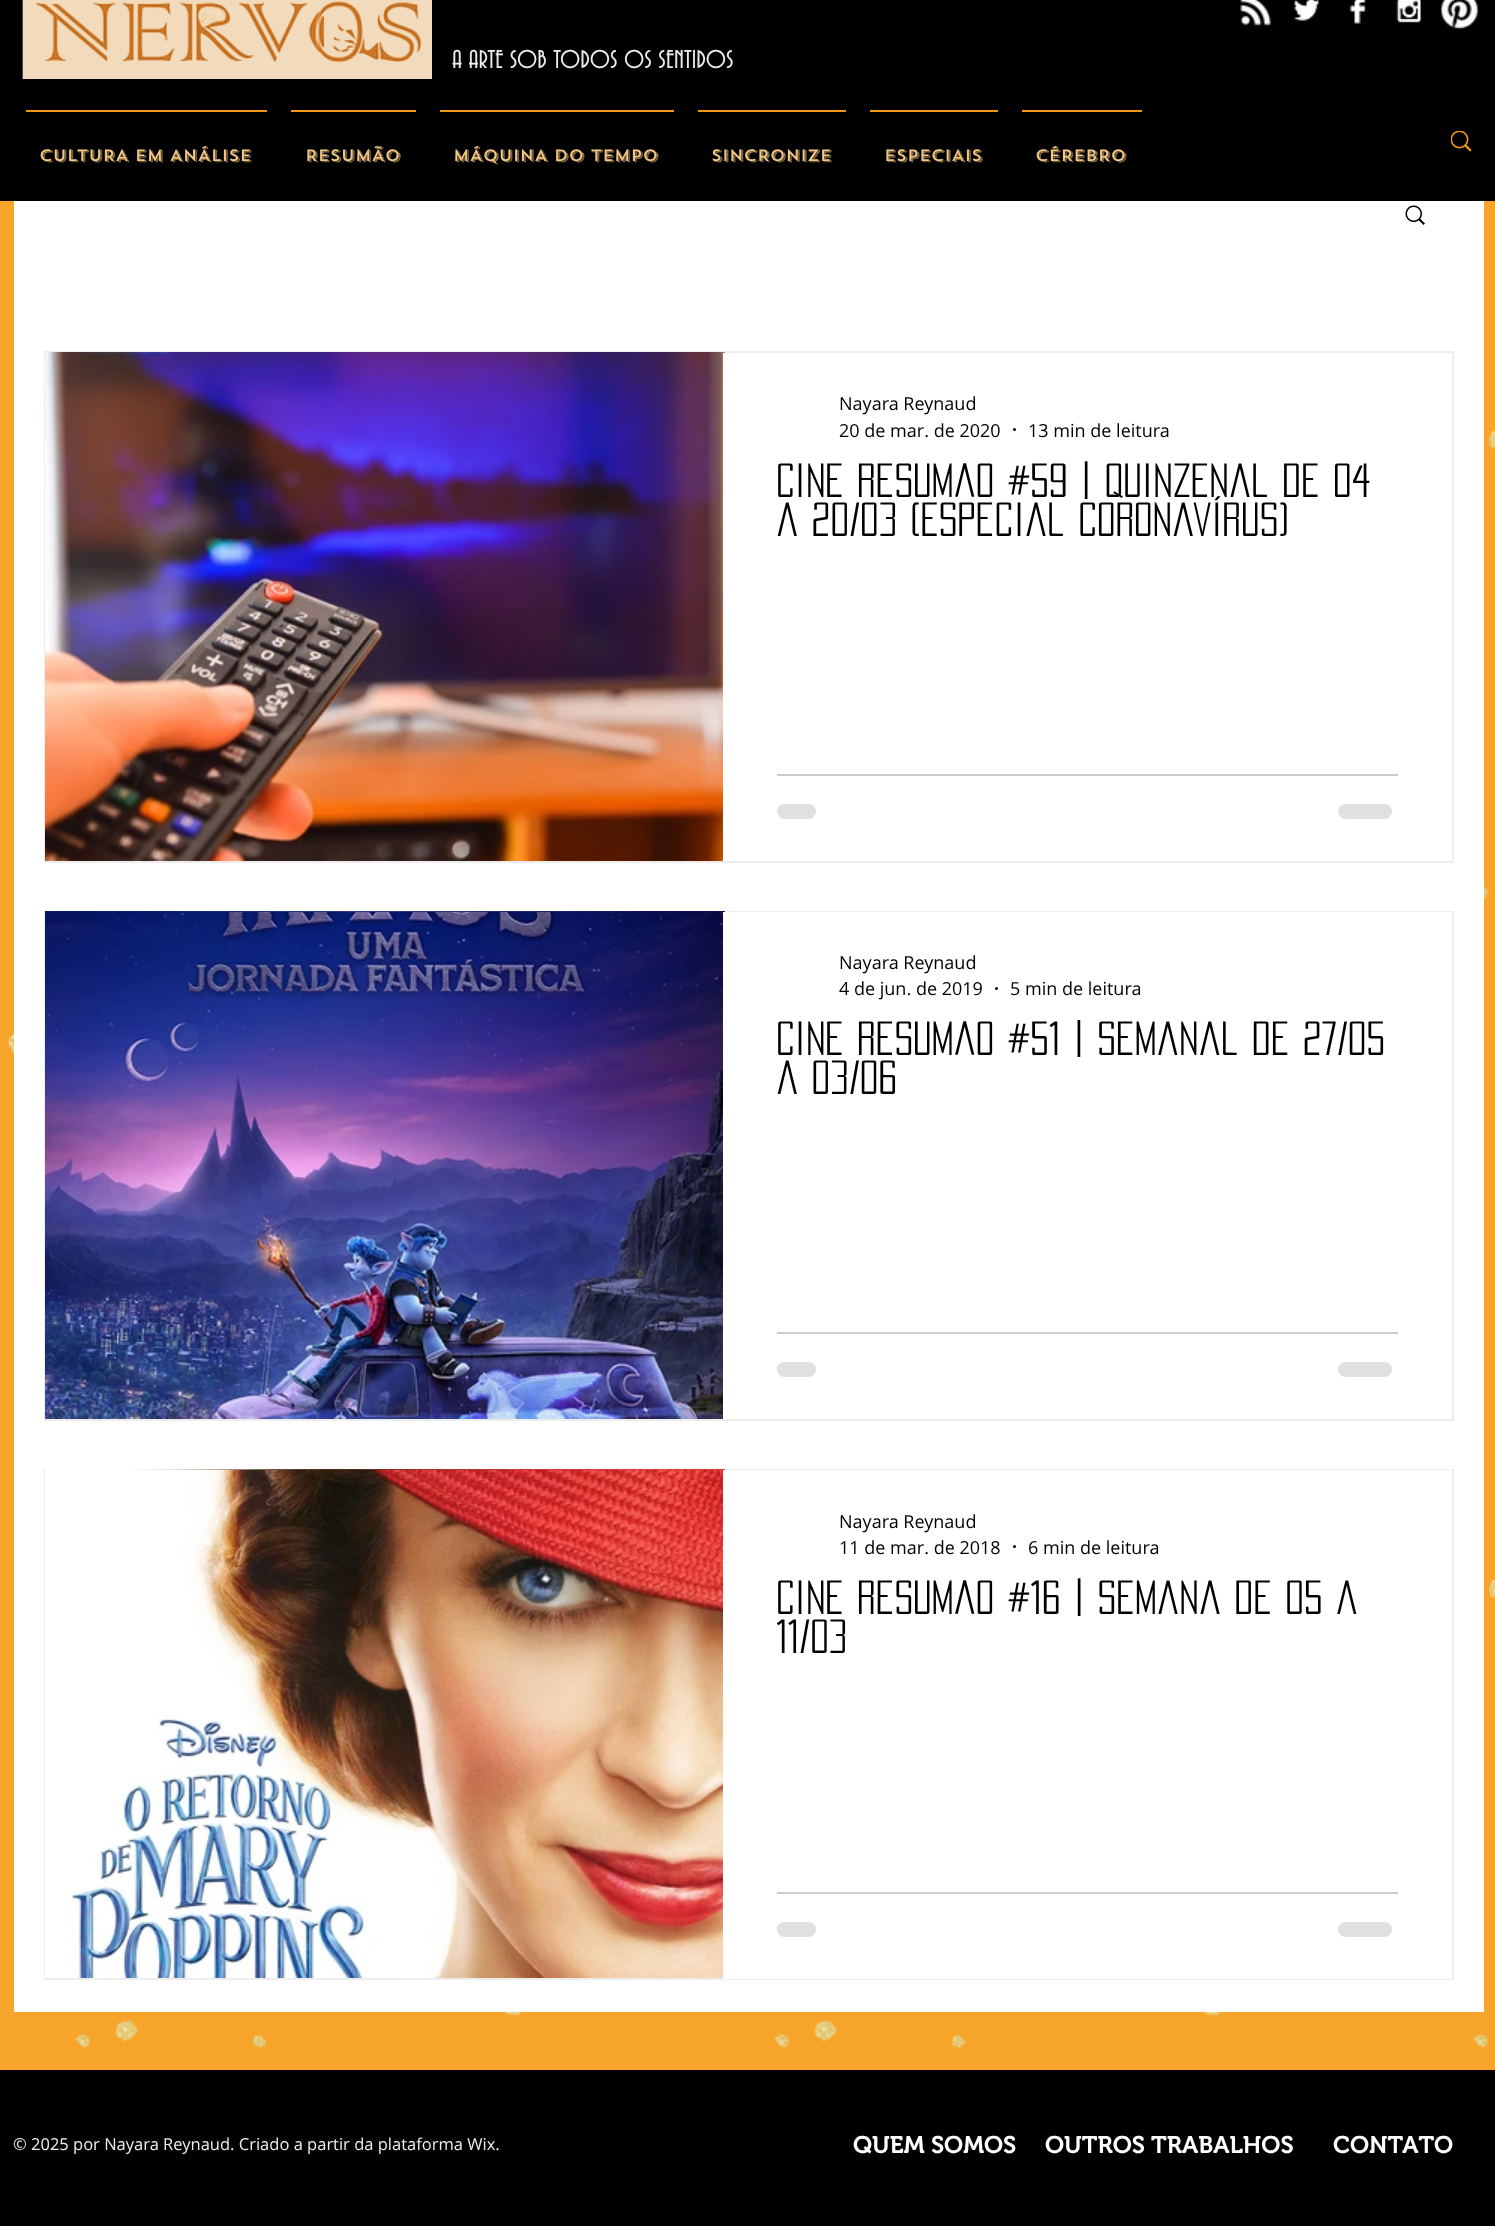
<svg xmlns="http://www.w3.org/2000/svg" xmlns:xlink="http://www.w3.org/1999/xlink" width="1495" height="2226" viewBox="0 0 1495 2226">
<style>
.cls-1{font:27px 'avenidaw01';fill:#ededec}
.cls-2{font:500 16.5px 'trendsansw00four';fill:#f2c683}
.cls-3{font:18px Open Sans;fill:#000000}
.cls-4{font:42px 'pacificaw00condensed';fill:#000000}
.cls-5{font:16.5px Open Sans;fill:#ededec}
.cls-6{font:600 24px 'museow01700';fill:#ffffff}
</style>
<defs>
<clipPath id="clip1"><rect x="777" y="461" width="621" height="78"/></clipPath>
<clipPath id="clip2"><rect x="777" y="1020" width="621" height="78"/></clipPath>
<clipPath id="clip3"><rect x="777" y="1578" width="621" height="78"/></clipPath>
</defs>
<rect width="100%" height="100%" fill="#f7a52a"/>
<rect fill="#000000" x="0" y="0" width="1495" height="201"/>
<image xlink:href="image0.png" x="22" y="0" width="410" height="79"/>
<image xlink:href="image1.png" x="1240" y="0" width="31" height="26"/>
<image xlink:href="image2.png" x="1294" y="0" width="26" height="21"/>
<image xlink:href="image3.png" x="1349" y="0" width="17" height="24"/>
<image xlink:href="image4.png" x="1396" y="0" width="25" height="23"/>
<image xlink:href="image5.png" x="1440" y="0" width="39" height="30"/>
<image xlink:href="image6.png" x="1451" y="131" width="21" height="21"/>
<rect fill="#f29811" x="26" y="110" width="241" height="2"/>
<rect fill="#f29811" x="291" y="110" width="125" height="2"/>
<rect fill="#f29811" x="440" y="110" width="234" height="2"/>
<rect fill="#f29811" x="698" y="110" width="148" height="2"/>
<rect fill="#f29811" x="870" y="110" width="128" height="2"/>
<rect fill="#f29811" x="1022" y="110" width="120" height="2"/>
<image xlink:href="image13.png" x="7" y="429" width="1488" height="1620"/>
<rect fill="#ffffff" x="14" y="201" width="1470" height="1811"/>
<image xlink:href="image7.png" x="1405" y="205" width="20" height="20"/>
<rect fill="none" stroke="#ededec" stroke-width="2" x="45" y="352" width="1408" height="510"/>
<image xlink:href="image8.png" x="45" y="352" width="680" height="509"/>
<rect fill="#ffffff" x="723" y="353" width="2" height="508"/>
<circle fill="#000000" cx="1014.5" cy="429.5" r="1.5"/>
<rect fill="#cccccc" x="777" y="774" width="621" height="2"/>
<rect fill="#e0e0e0" x="777" y="804" width="39" height="15" rx="7.5"/>
<rect fill="#e0e0e0" x="1338" y="804" width="54" height="15" rx="7.5"/>
<rect fill="none" stroke="#ededec" stroke-width="2" x="45" y="912" width="1408" height="508"/>
<image xlink:href="image9.png" x="45" y="911" width="680" height="1"/>
<image xlink:href="image10.png" x="45" y="912" width="678" height="507"/>
<rect fill="#ffffff" x="723" y="912" width="729" height="1"/>
<circle fill="#000000" cx="996.5" cy="988.5" r="1.5"/>
<rect fill="#cccccc" x="777" y="1332" width="621" height="2"/>
<rect fill="#e0e0e0" x="777" y="1362" width="39" height="15" rx="7.5"/>
<rect fill="#e0e0e0" x="1338" y="1362" width="54" height="15" rx="7.5"/>
<rect fill="none" stroke="#ededec" stroke-width="2" x="45" y="1470" width="1408" height="509"/>
<image xlink:href="image11.png" x="45" y="1469" width="680" height="1"/>
<image xlink:href="image12.png" x="45" y="1470" width="678" height="508"/>
<rect fill="#ffffff" x="723" y="1470" width="729" height="509"/>
<circle fill="#000000" cx="1014.5" cy="1546.5" r="1.5"/>
<rect fill="#cccccc" x="777" y="1892" width="621" height="2"/>
<rect fill="#e0e0e0" x="777" y="1922" width="39" height="15" rx="7.5"/>
<rect fill="#e0e0e0" x="1338" y="1922" width="54" height="15" rx="7.5"/>
<rect fill="#000000" x="0" y="2070" width="1495" height="156"/>
<text class="cls-1" x="452" y="68">A ARTE SOB TODOS OS SENTIDOS</text>
<text class="cls-2" x="39" y="161">CULTURA EM ANÁLISE</text>
<text class="cls-2" x="305" y="161">RESUMÃO</text>
<text class="cls-2" x="453" y="161">MÁQUINA DO TEMPO</text>
<text class="cls-2" x="711" y="161">SINCRONIZE</text>
<text class="cls-2" x="884" y="161">ESPECIAIS</text>
<text class="cls-2" x="1035" y="161">CÉREBRO</text>
<text class="cls-3"><tspan x="839" y="410">Nayara Reynaud</tspan><tspan x="839" y="437">20 de mar. de 2020</tspan></text>
<text class="cls-3" x="1028" y="437">13 min de leitura</text>
<g clip-path="url(#clip1)">
<text class="cls-4" x="776" y="497">Cine Resumão #59 | Quinzenal de 04</text>
</g>
<text class="cls-4" x="776" y="536">a 20/03 (Especial Coronavírus)</text>
<text class="cls-3"><tspan x="839" y="969">Nayara Reynaud</tspan><tspan x="839" y="995">4 de jun. de 2019</tspan></text>
<text class="cls-3" x="1010" y="995">5 min de leitura</text>
<g clip-path="url(#clip2)">
<text class="cls-4" x="776" y="1055">Cine Resumão #51 | Semanal de 27/05</text>
</g>
<text class="cls-4" x="776" y="1094">a 03/06</text>
<text class="cls-3"><tspan x="839" y="1528">Nayara Reynaud</tspan><tspan x="839" y="1554">11 de mar. de 2018</tspan></text>
<text class="cls-3" x="1028" y="1554">6 min de leitura</text>
<g clip-path="url(#clip3)">
<text class="cls-4" x="776" y="1614">Cine Resumão #16 | Semana de 05 a</text>
</g>
<text class="cls-4" x="776" y="1653">11/03</text>
<text class="cls-5" x="13" y="2150">© 2025 por Nayara Reynaud. Criado a partir da plataforma Wix.</text>
<text class="cls-6" x="853" y="2153">QUEM SOMOS</text>
<text class="cls-6" x="1045" y="2153">OUTROS TRABALHOS</text>
<text class="cls-6" x="1333" y="2153">CONTATO</text>
</svg>
